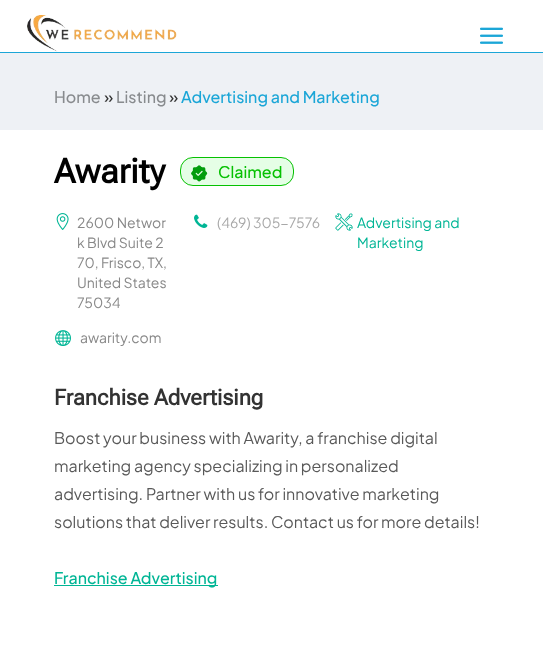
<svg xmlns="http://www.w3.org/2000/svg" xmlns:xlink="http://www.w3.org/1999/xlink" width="543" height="660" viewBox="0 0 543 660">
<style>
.cls-1{font:500 16px Plus Jakarta Sans;fill:#888b8e}
.cls-2{font:500 16px Plus Jakarta Sans;fill:#333333}
.cls-3{font:500 16px Plus Jakarta Sans;fill:#1ba6d7}
.cls-4{font:bold 34px Roboto Flex;fill:#000000}
.cls-5{font:500 16px Plus Jakarta Sans;fill:#06c102}
.cls-6{font:14px Plus Jakarta Sans;fill:#888888}
.cls-7{font:14px Plus Jakarta Sans;fill:#a8a8a8}
.cls-8{font:14px Plus Jakarta Sans;fill:#00b595}
.cls-9{font:bold 22px Roboto Flex;fill:#333333}
.cls-10{font:16px Plus Jakarta Sans;fill:#595959}
.cls-11{font:500 16px Plus Jakarta Sans;fill:#00b595}
</style>
<rect width="100%" height="100%" fill="#ffffff"/>
<rect fill="#1ba6d7" x="0" y="52" width="543" height="1"/>
<image xlink:href="image0.png" x="27" y="15" width="150" height="37"/>
<image xlink:href="image1.png" x="480" y="27" width="23" height="17"/>
<rect fill="#eef1f5" x="0" y="53" width="543" height="77"/>
<rect fill="#e5fee6" stroke="#06c102" x="180.5" y="157.5" width="113" height="28" rx="12.5"/>
<image xlink:href="image2.png" x="191" y="165" width="17" height="17"/>
<image xlink:href="image3.png" x="56" y="213" width="13" height="17"/>
<image xlink:href="image4.png" x="194" y="214" width="14" height="14"/>
<image xlink:href="image5.png" x="335" y="213" width="18" height="18"/>
<image xlink:href="image6.png" x="55" y="330" width="16" height="16"/>
<rect fill="#00b595" x="54" y="585" width="164" height="1"/>
<text class="cls-1" x="54" y="103">Home</text>
<text class="cls-2" x="104" y="103">»</text>
<text class="cls-1" x="116" y="103">Listing</text>
<text class="cls-2" x="169" y="103">»</text>
<text class="cls-3" x="181" y="103">Advertising and Marketing</text>
<text class="cls-4" x="54" y="183">Awarity</text>
<text class="cls-5" x="218" y="178">Claimed</text>
<text class="cls-6"><tspan x="77" y="228">2600 Networ</tspan><tspan x="77" y="248">k Blvd Suite 2</tspan><tspan x="77" y="268">70, Frisco, TX,</tspan><tspan x="77" y="288">United States</tspan><tspan x="77" y="308">75034</tspan></text>
<text class="cls-7" x="217" y="228">(469) 305-7576</text>
<text class="cls-8"><tspan x="357" y="228">Advertising and</tspan><tspan x="357" y="248">Marketing</tspan></text>
<text class="cls-6" x="80" y="343">awarity.com</text>
<text class="cls-9" x="54" y="405">Franchise Advertising</text>
<text class="cls-10"><tspan x="54" y="444">‍Boost your business with Awarity, a franchise digital</tspan><tspan x="54" y="472">marketing agency specializing in personalized</tspan><tspan x="54" y="500">advertising. Partner with us for innovative marketing</tspan><tspan x="54" y="528">solutions that deliver results. Contact us for more details!</tspan></text>
<text class="cls-11" x="54" y="584">Franchise Advertising</text>
</svg>
